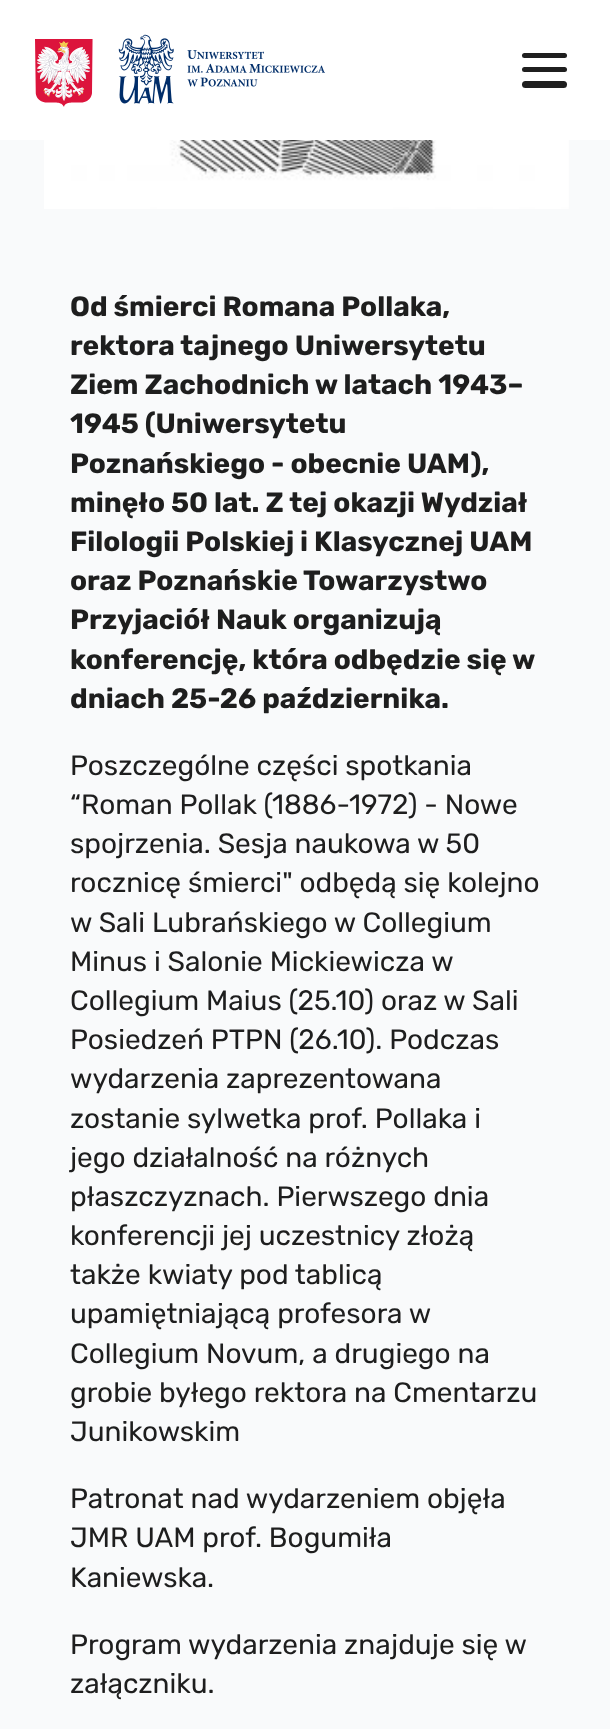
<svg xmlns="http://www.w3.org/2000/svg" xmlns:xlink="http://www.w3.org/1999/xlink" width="610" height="1729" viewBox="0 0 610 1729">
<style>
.cls-1{font:bold 28px Rubik;fill:#1e1e1e}
.cls-2{font:28px Rubik;fill:#1e1e1e}
</style>
<rect width="100%" height="100%" fill="#f9fafb"/>
<rect fill="#ffffff" x="0" y="0" width="610" height="140"/>
<image xlink:href="image0.png" x="35" y="39" width="58" height="68"/>
<image xlink:href="image1.png" x="118" y="34" width="207" height="70"/>
<rect fill="#1f1f1f" x="522" y="67" width="45" height="5" rx="2.5"/>
<rect fill="#1f1f1f" x="522" y="53" width="45" height="5" rx="2.5"/>
<rect fill="#1f1f1f" x="522" y="81" width="45" height="7" rx="3.5"/>
<image xlink:href="image2.png" x="44" y="140" width="525" height="69"/>
<text class="cls-1"><tspan x="70" y="316">Od śmierci Romana Pollaka,</tspan><tspan x="70" y="355">rektora tajnego Uniwersytetu</tspan><tspan x="70" y="394">Ziem Zachodnich w latach 1943–</tspan><tspan x="70" y="433">1945 (Uniwersytetu</tspan><tspan x="70" y="473">Poznańskiego - obecnie UAM),</tspan><tspan x="70" y="512">minęło 50 lat. Z tej okazji Wydział</tspan><tspan x="70" y="551">Filologii Polskiej i Klasycznej UAM</tspan><tspan x="70" y="590">oraz Poznańskie Towarzystwo</tspan><tspan x="70" y="629">Przyjaciół Nauk organizują</tspan><tspan x="70" y="669">konferencję, która odbędzie się w</tspan><tspan x="70" y="708">dniach 25-26 października.</tspan></text>
<text class="cls-2"><tspan x="70" y="775">Poszczególne części spotkania</tspan><tspan x="70" y="814">“Roman Pollak (1886-1972) - Nowe</tspan><tspan x="70" y="853">spojrzenia. Sesja naukowa w 50</tspan><tspan x="70" y="892">rocznicę śmierci" odbędą się kolejno</tspan><tspan x="70" y="932">w Sali Lubrańskiego w Collegium</tspan><tspan x="70" y="971">Minus i Salonie Mickiewicza w</tspan><tspan x="70" y="1010">Collegium Maius (25.10) oraz w Sali</tspan><tspan x="70" y="1049">Posiedzeń PTPN (26.10). Podczas</tspan><tspan x="70" y="1088">wydarzenia zaprezentowana</tspan><tspan x="70" y="1128">zostanie sylwetka prof. Pollaka i</tspan><tspan x="70" y="1167">jego działalność na różnych</tspan><tspan x="70" y="1206">płaszczyznach. Pierwszego dnia</tspan><tspan x="70" y="1245">konferencji jej uczestnicy złożą</tspan><tspan x="70" y="1284">także kwiaty pod tablicą</tspan><tspan x="70" y="1323">upamiętniającą profesora w</tspan><tspan x="70" y="1363">Collegium Novum, a drugiego na</tspan><tspan x="70" y="1402">grobie byłego rektora na Cmentarzu</tspan><tspan x="70" y="1441">Junikowskim</tspan></text>
<text class="cls-2"><tspan x="70" y="1508">Patronat nad wydarzeniem objęła</tspan><tspan x="70" y="1547">JMR UAM prof. Bogumiła</tspan><tspan x="70" y="1587">Kaniewska.</tspan></text>
<text class="cls-2"><tspan x="70" y="1654">Program wydarzenia znajduje się w</tspan><tspan x="70" y="1693">załączniku.</tspan></text>
</svg>
